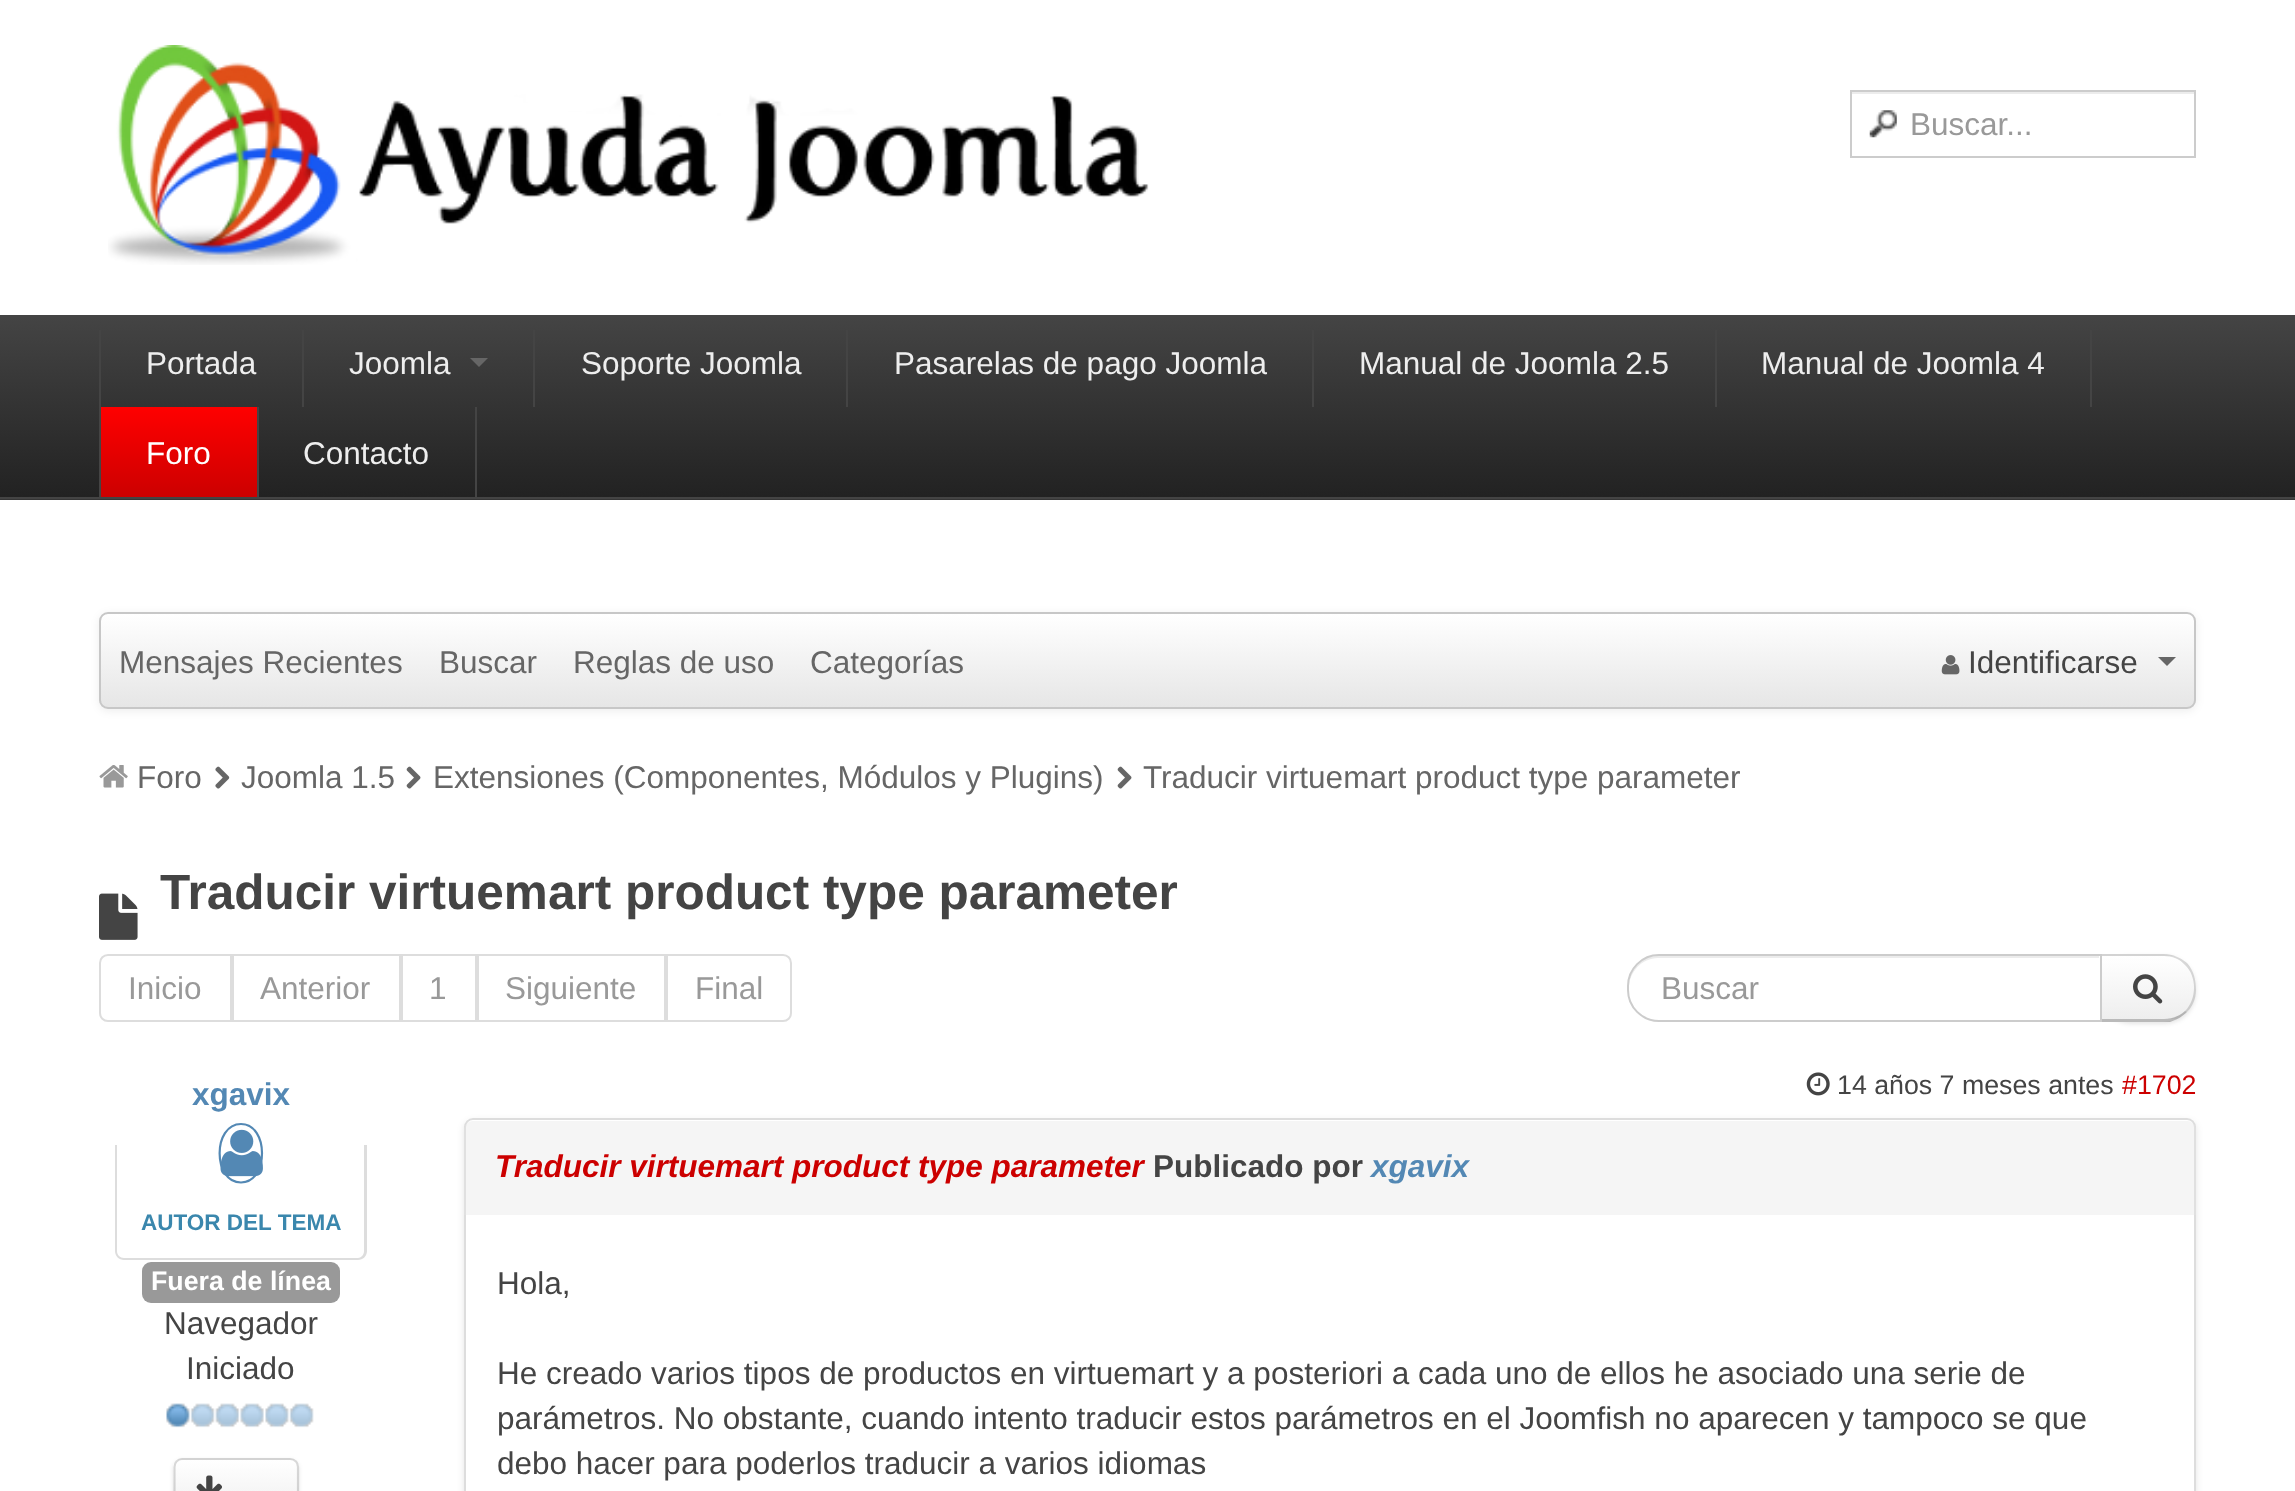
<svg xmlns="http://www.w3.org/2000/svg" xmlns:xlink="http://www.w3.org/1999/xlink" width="2295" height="1491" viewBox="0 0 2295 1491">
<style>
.cls-1{font:31.5px Liberation Sans;fill:#999999}
.cls-2{font:31.5px Liberation Sans;fill:#eeeeee}
.cls-3{font:31.5px Liberation Sans;fill:#ffffff}
.cls-4{font:31.5px Liberation Sans;fill:#666666}
.cls-5{font:31.5px Liberation Sans;fill:#444444}
.cls-6{font:bold 49.5px Liberation Sans;fill:#444444}
.cls-7{font:bold 31.5px Liberation Sans;fill:#5388b4}
.cls-8{font:bold 22.5px Liberation Sans;fill:#3a87ad}
.cls-9{font:bold 26.75px Liberation Sans;fill:#ffffff}
.cls-10{font:26.75px Liberation Sans;fill:#444444}
.cls-11{font:26.75px Liberation Sans;fill:#cc0000}
.cls-12{font:italic bold 31.5px Liberation Sans;fill:#cc0000}
.cls-13{font:bold 31.5px Liberation Sans;fill:#444444}
.cls-14{font:italic bold 31.5px Liberation Sans;fill:#5388b4}
</style>
<defs>
<linearGradient id="g1" gradientUnits="userSpaceOnUse" x1="1148" y1="317" x2="1148" y2="497"><stop offset="0" stop-color="#444444"/><stop offset="1" stop-color="#222222"/></linearGradient>
<linearGradient id="g2" gradientUnits="userSpaceOnUse" x1="179" y1="407" x2="179" y2="497"><stop offset="0" stop-color="#ff0000"/><stop offset="1" stop-color="#cc0000"/></linearGradient>
<clipPath id="clip1"><rect x="99" y="612" width="2097" height="97" rx="9"/></clipPath>
<linearGradient id="g3" gradientUnits="userSpaceOnUse" x1="1148" y1="614" x2="1148" y2="707"><stop offset="0" stop-color="#ffffff"/><stop offset="1" stop-color="#e6e6e6"/></linearGradient>
<clipPath id="clip2"><path d="M2099 954H2164C2181.5 954 2196 968.5 2196 986V990C2196 1007.5 2181.5 1022 2164 1022H2099Z"/></clipPath>
<linearGradient id="g4" gradientUnits="userSpaceOnUse" x1="2148" y1="956" x2="2148" y2="1019"><stop offset="0" stop-color="#ffffff"/><stop offset="1" stop-color="#eeeeee"/></linearGradient>
<clipPath id="clip3"><rect x="173" y="1458" width="126" height="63" rx="9"/></clipPath>
<linearGradient id="g5" gradientUnits="userSpaceOnUse" x1="236" y1="1460" x2="236" y2="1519"><stop offset="0" stop-color="#ffffff"/><stop offset="1" stop-color="#eeeeee"/></linearGradient>
<clipPath id="clip4"><path d="M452 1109H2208V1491H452ZM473 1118H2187C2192 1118 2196 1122 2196 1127V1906C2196 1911 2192 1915 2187 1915H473C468 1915 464 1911 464 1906V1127C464 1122 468 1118 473 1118Z" clip-rule="evenodd"/></clipPath>
</defs>
<rect width="100%" height="100%" fill="#ffffff"/>
<image xlink:href="image0.png" x="108" y="45" width="1041" height="220"/>
<image xlink:href="image1.png" x="1869" y="110" width="28" height="28"/>
<rect fill="#ececec" x="1852" y="92" width="342" height="2"/>
<rect fill="none" stroke="#cccccc" stroke-width="2" x="1851" y="91" width="344" height="66"/>
<rect fill="#363636" x="0" y="499" width="2295" height="1"/>
<rect fill="url(#g1)" x="0" y="317" width="2295" height="180"/>
<rect fill="#444444" x="0" y="315" width="2295" height="2"/>
<rect fill="#444444" x="0" y="497" width="2295" height="2"/>
<rect fill="#444444" x="99" y="330" width="2" height="167"/>
<rect fill="#444444" x="302" y="330" width="2" height="77"/>
<rect fill="#444444" x="533" y="330" width="2" height="77"/>
<path fill="#666666" d="M470 358H488L479 367Z"/>
<rect fill="#444444" x="846" y="330" width="2" height="77"/>
<rect fill="#444444" x="1312" y="330" width="2" height="77"/>
<rect fill="#444444" x="1715" y="330" width="2" height="77"/>
<rect fill="#444444" x="2090" y="330" width="2" height="77"/>
<rect fill="url(#g2)" x="101" y="407" width="156" height="90"/>
<rect fill="#444444" x="257" y="407" width="2" height="90"/>
<rect fill="#444444" x="475" y="407" width="2" height="90"/>
<rect fill="#000000" fill-opacity="0.07" filter="blur(4.5px)" x="99" y="614" width="2097" height="97" rx="9"/>
<g clip-path="url(#clip1)">
<rect fill="url(#g3)" x="99" y="614" width="2097" height="93"/>
</g>
<rect fill="none" stroke="#c7c7c7" stroke-width="2" x="100" y="613" width="2095" height="95" rx="8"/>
<image xlink:href="image2.png" x="1941" y="655" width="19" height="20"/>
<path fill="#666666" d="M2158 657H2176L2167 666Z"/>
<image xlink:href="image3.png" x="99" y="765" width="29" height="23"/>
<image xlink:href="image4.png" x="215" y="766" width="15" height="23"/>
<image xlink:href="image5.png" x="406" y="766" width="15" height="23"/>
<image xlink:href="image5.png" x="1117" y="766" width="15" height="23"/>
<image xlink:href="image6.png" x="99" y="893" width="39" height="47"/>
<path fill="none" stroke="#dddddd" stroke-width="2" d="M108 955H231V1021H108C103.5 1021 100 1017.5 100 1013V963C100 958.5 103.5 955 108 955Z"/>
<rect fill="none" stroke="#dddddd" stroke-width="2" x="233" y="955" width="167" height="66"/>
<rect fill="none" stroke="#dddddd" stroke-width="2" x="402" y="955" width="74" height="66"/>
<rect fill="none" stroke="#dddddd" stroke-width="2" x="478" y="955" width="187" height="66"/>
<path fill="none" stroke="#dddddd" stroke-width="2" d="M667 955H783C787.5 955 791 958.5 791 963V1013C791 1017.5 787.5 1021 783 1021H667Z"/>
<rect fill="#000000" fill-opacity="0.1" filter="blur(2px)" x="2099" y="956" width="97" height="68" rx="32"/>
<path fill="#f8f8f8" d="M2099 954H2164C2181.5 954 2196 968.5 2196 986V990C2196 1007.5 2181.5 1022 2164 1022H2099Z"/>
<g clip-path="url(#clip2)">
<rect fill="url(#g4)" x="2102" y="956" width="94" height="63"/>
</g>
<path fill="#000000" fill-opacity="0.15" d="M2102 956H2164C2172 956 2180 959 2185 965L2187 963C2181 958 2173 954 2164 954H2099L2102 957Z"/>
<path fill="#000000" fill-opacity="0.15" d="M2196 990C2196 980 2194 971 2187 963L2185 965C2197 976 2197 999 2185 1011L2187 1012C2193 1006 2196 998 2196 990Z"/>
<path fill="#000000" fill-opacity="0.25" d="M2187 1012C2182 1017 2176 1020 2170 1022H2099L2102 1019H2164C2172 1019 2180 1016 2185 1011Z"/>
<path fill="#ffffff" d="M1659 954H2102V1022H1659C1641.5 1022 1627 1007.5 1627 990V986C1627 968.5 1641.5 954 1659 954Z"/>
<path fill="#ececec" d="M1658 958H2099V956H1658C1642 956 1629 969 1629 985V988C1629 972 1642 958 1658 958Z"/>
<path fill="none" stroke="#cccccc" stroke-width="2" d="M1659 955H2101V1021H1659C1642 1021 1628 1007 1628 990V986C1628 969 1642 955 1659 955Z"/>
<image xlink:href="image7.png" x="2133" y="974" width="30" height="30"/>
<path fill="none" stroke="#5388b4" stroke-width="2.2" d="M241 1124C269 1124 269 1182.5 241 1182.5C212.5 1182.5 212.5 1124 241 1124Z"/>
<image xlink:href="image8.png" x="220" y="1129" width="43" height="48"/>
<path fill="#dddddd" fill-rule="evenodd" d="M115 1145H367V1251C367 1256 363 1260 358 1260H124C119 1260 115 1256 115 1251ZM117 1145H364V1251C364 1255 361 1258 358 1258H124C120 1258 117 1255 117 1251Z"/>
<rect fill="#999999" x="142" y="1262" width="198" height="41" rx="9"/>
<image xlink:href="image9.png" x="166" y="1403" width="148" height="25"/>
<rect fill="#000000" fill-opacity="0.1" filter="blur(2px)" x="173" y="1460" width="126" height="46" rx="9"/>
<rect fill="#f8f8f8" x="173" y="1458" width="126" height="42" rx="9"/>
<g clip-path="url(#clip3)">
<rect fill="url(#g5)" x="173" y="1460" width="126" height="31"/>
</g>
<path fill="none" stroke="#000000" stroke-opacity="0.15" stroke-width="2.2" d="M176.5 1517.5C175 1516 174.5 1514 174.5 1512V1467C174.5 1465 175 1463 176.5 1461.5C178 1460 180 1459 182 1459H290C292.5 1459 294.5 1460 296 1461.5C297.5 1463 298 1465 298 1467V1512C298 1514 297.5 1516 296 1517.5"/>
<image xlink:href="image10.png" x="196" y="1475" width="26" height="16"/>
<image xlink:href="image11.png" x="1806" y="1072" width="24" height="24"/>
<g clip-path="url(#clip4)">
<rect fill="#000000" fill-opacity="0.1" filter="blur(3.5px)" x="464" y="1121" width="1732" height="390" rx="9"/>
</g>
<rect fill="none" stroke="#dddddd" stroke-width="2" x="465" y="1119" width="1730" height="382" rx="8"/>
<path fill="#e5e5e5" fill-opacity="0.4" d="M473 1121H2187C2192 1121 2196 1125 2196 1130V1215H464V1130C464 1125 468 1121 473 1121Z"/>
<text class="cls-1" x="1910" y="135">Buscar...</text>
<text class="cls-2" x="146" y="374">Portada</text>
<text class="cls-2" x="349" y="374">Joomla</text>
<text class="cls-2" x="581" y="374">Soporte Joomla</text>
<text class="cls-2" x="894" y="374">Pasarelas de pago Joomla</text>
<text class="cls-2" x="1359" y="374">Manual de Joomla 2.5</text>
<text class="cls-2" x="1761" y="374">Manual de Joomla 4</text>
<text class="cls-3" x="146" y="464">Foro</text>
<text class="cls-2" x="303" y="464">Contacto</text>
<text class="cls-4" x="119" y="673">Mensajes Recientes</text>
<text class="cls-4" x="439" y="673">Buscar</text>
<text class="cls-4" x="573" y="673">Reglas de uso</text>
<text class="cls-4" x="810" y="673">Categorías</text>
<text class="cls-5" x="1968" y="673">Identificarse</text>
<text class="cls-4" x="137" y="788">Foro</text>
<text class="cls-4" x="241" y="788">Joomla 1.5</text>
<text class="cls-4" x="433" y="788">Extensiones (Componentes, Módulos y Plugins)</text>
<text class="cls-4" x="1143" y="788">Traducir virtuemart product type parameter</text>
<text class="cls-6" x="160" y="909">Traducir virtuemart product type parameter</text>
<text class="cls-1" x="128" y="999">Inicio</text>
<text class="cls-1" x="260" y="999">Anterior</text>
<text class="cls-1" x="429" y="999">1</text>
<text class="cls-1" x="505" y="999">Siguiente</text>
<text class="cls-1" x="695" y="999">Final</text>
<text class="cls-1" x="1661" y="999">Buscar</text>
<text class="cls-7" x="192" y="1105">xgavix</text>
<text class="cls-8" x="141" y="1230">AUTOR DEL TEMA</text>
<text class="cls-9" x="151" y="1290">Fuera de línea</text>
<text class="cls-5" x="164" y="1334">Navegador</text>
<text class="cls-5" x="186" y="1379">Iniciado</text>
<text class="cls-10" x="1837" y="1094">14 años 7 meses antes</text>
<text class="cls-11" x="2122" y="1094">#1702</text>
<text class="cls-12" x="495" y="1177">Traducir virtuemart product type parameter</text>
<text class="cls-13" x="1153" y="1177">Publicado por</text>
<text class="cls-14" x="1371" y="1177">xgavix</text>
<text class="cls-5" x="497" y="1294">Hola,</text>
<text class="cls-5"><tspan x="497" y="1384">He creado varios tipos de productos en virtuemart y a posteriori a cada uno de ellos he asociado una serie de</tspan><tspan x="497" y="1429">parámetros. No obstante, cuando intento traducir estos parámetros en el Joomfish no aparecen y tampoco se que</tspan><tspan x="497" y="1474">debo hacer para poderlos traducir a varios idiomas</tspan></text>
</svg>
